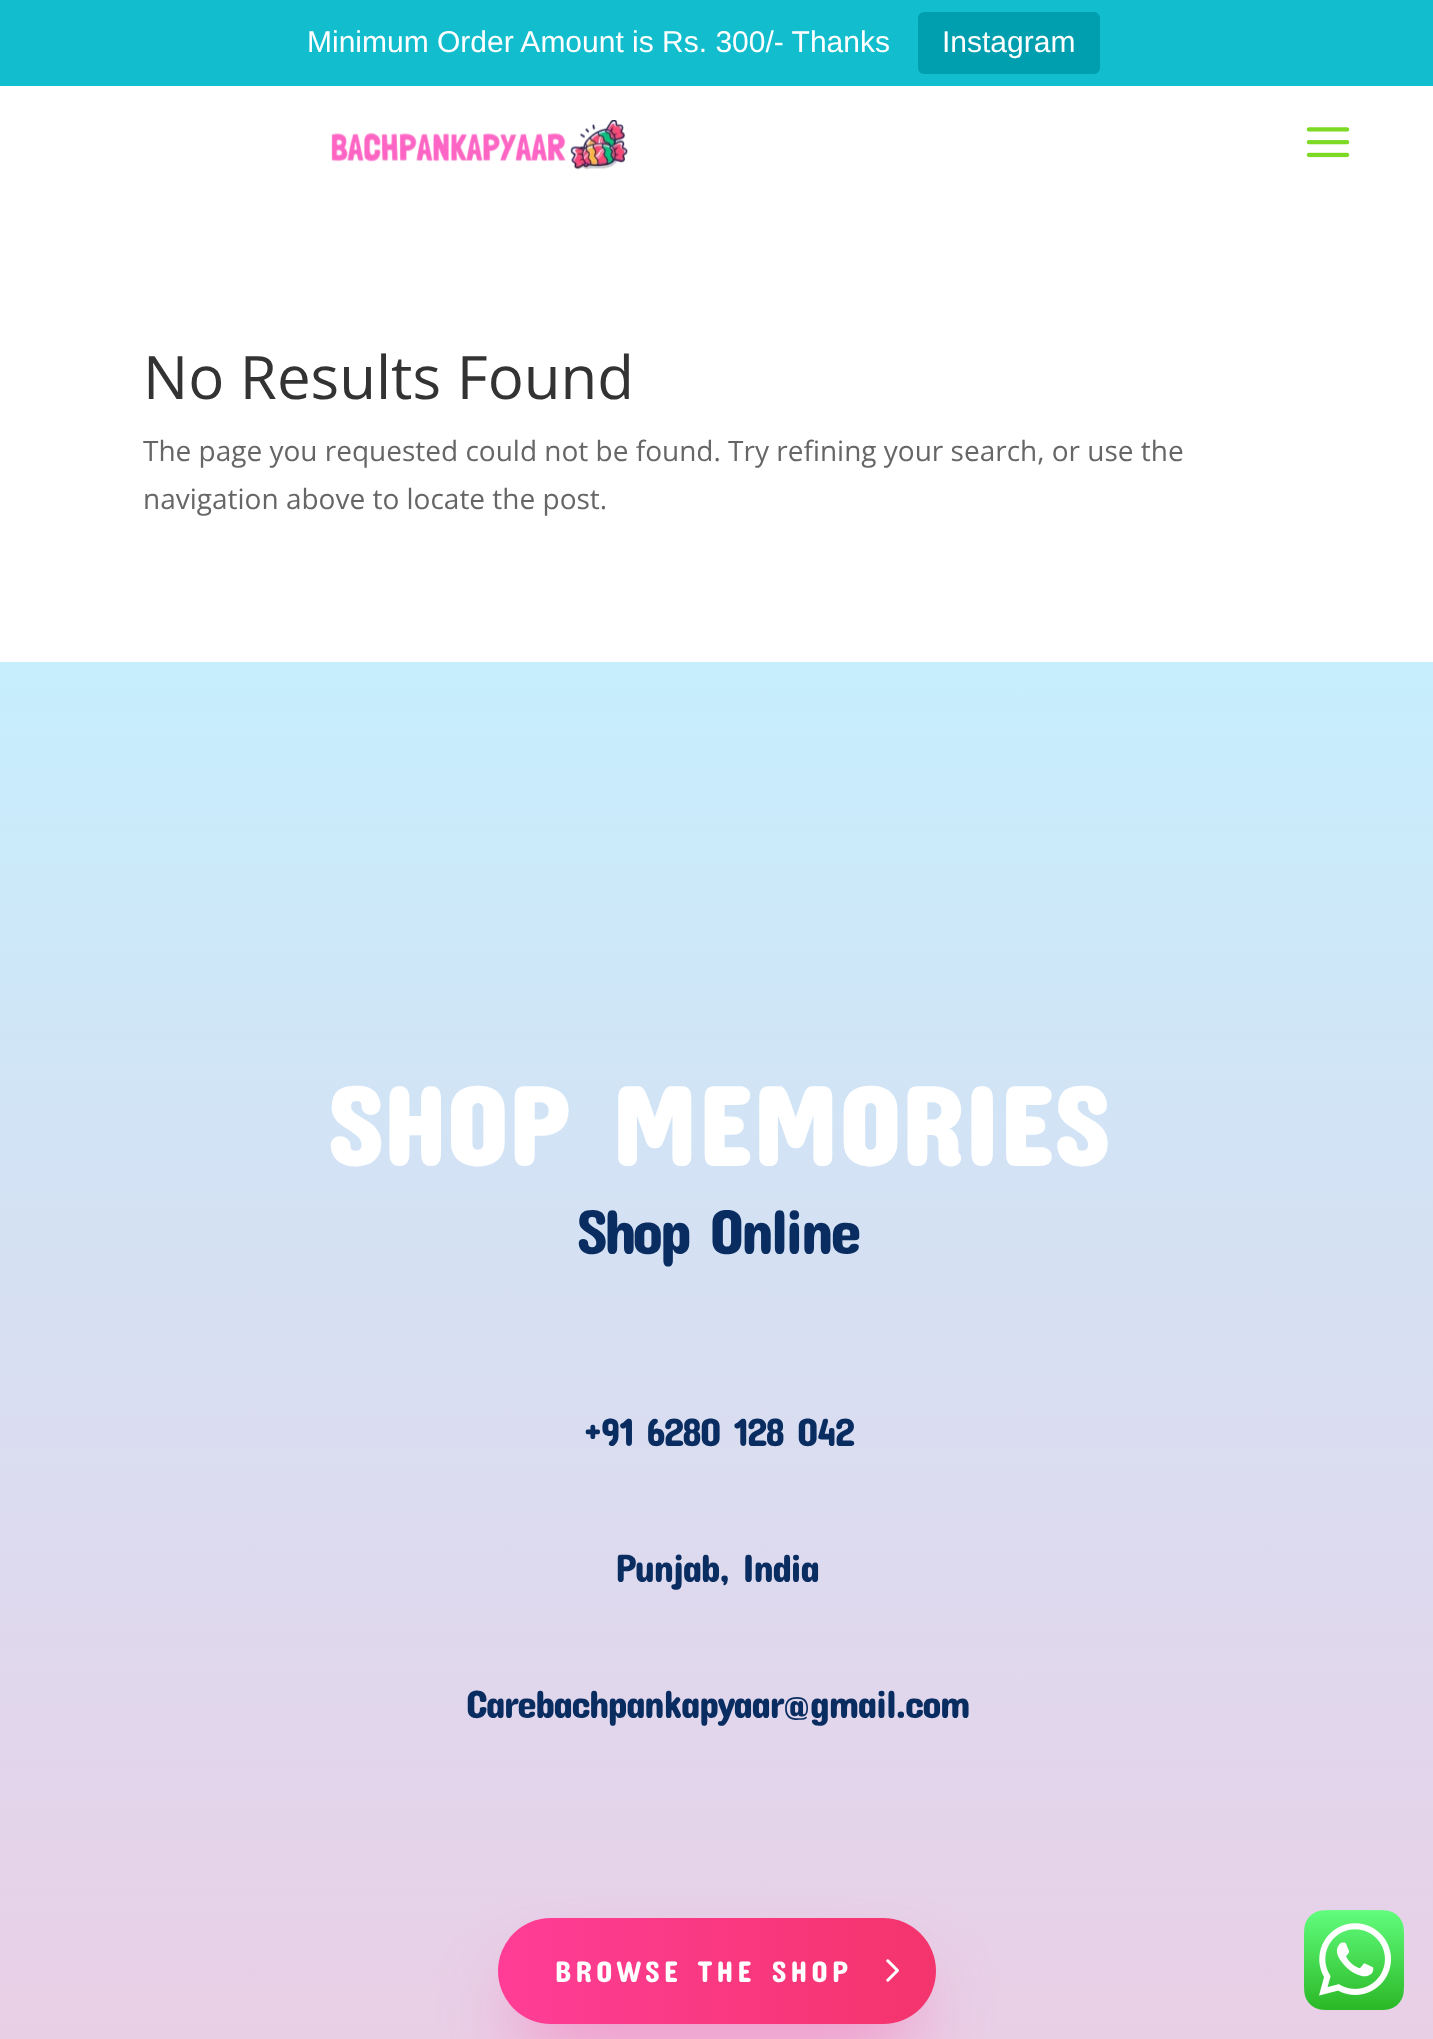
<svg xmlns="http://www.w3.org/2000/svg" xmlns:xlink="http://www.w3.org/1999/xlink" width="1433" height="2039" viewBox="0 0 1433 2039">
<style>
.cls-1{font:30px Liberation Sans;fill:#ffffff}
.cls-2{font:60px Open Sans;fill:#333333}
.cls-3{font:28px Open Sans;fill:#666666}
.cls-4{font:bold 112px Concert One;fill:#ffffff}
.cls-5{font:64px Concert One;letter-spacing:-4px;fill:#0a2d61}
.cls-6{font:40px Concert One;letter-spacing:-2px;fill:#0a2d61}
.cls-7{font:30px Concert One;letter-spacing:4px;fill:#ffffff}
</style>
<defs>
<linearGradient id="g1" gradientUnits="userSpaceOnUse" x1="717" y1="662" x2="717" y2="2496"><stop offset="0" stop-color="#c6eefd"/><stop offset="1" stop-color="#f5c5df"/></linearGradient>
<linearGradient id="g2" gradientUnits="userSpaceOnUse" x1="498" y1="1971" x2="936" y2="1971"><stop offset="0" stop-color="#ff3d97"/><stop offset="1" stop-color="#f4346c"/></linearGradient>
</defs>
<rect width="100%" height="100%" fill="#ffffff"/>
<rect fill="#12bece" x="0" y="0" width="1433" height="86"/>
<rect fill="#009faf" x="918" y="12" width="182" height="62" rx="6"/>
<image xlink:href="image0.png" x="331" y="120" width="297" height="50"/>
<image xlink:href="image1.png" x="1306" y="127" width="44" height="31"/>
<rect fill="url(#g1)" x="0" y="662" width="1433" height="1377"/>
<rect fill="#ff3d97" fill-opacity="0.5" filter="blur(40px)" x="518" y="1978" width="398" height="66" rx="33"/>
<rect fill="url(#g2)" x="498" y="1918" width="438" height="106" rx="53"/>
<image xlink:href="image2.png" x="886" y="1959" width="13" height="23"/>
<image xlink:href="image3.png" x="1304" y="1910" width="100" height="100"/>
<text class="cls-1" x="307" y="52">Minimum Order Amount is Rs. 300/- Thanks</text>
<text class="cls-1" x="942" y="52">Instagram</text>
<text class="cls-2" x="143" y="399">No Results Found</text>
<text class="cls-3"><tspan x="143" y="461">The page you requested could not be found. Try refining your search, or use the</tspan><tspan x="143" y="509">navigation above to locate the post.</tspan></text>
<text class="cls-4" x="326" y="1166">SHOP MEMORIES</text>
<text class="cls-5" x="576" y="1254">Shop Online</text>
<text class="cls-6" x="582" y="1446">+91 6280 128 042</text>
<text class="cls-6" x="615" y="1582">Punjab, India</text>
<text class="cls-6" x="466" y="1718">Carebachpankapyaar@gmail.com</text>
<text class="cls-7" x="555" y="1982">BROWSE THE SHOP</text>
</svg>
